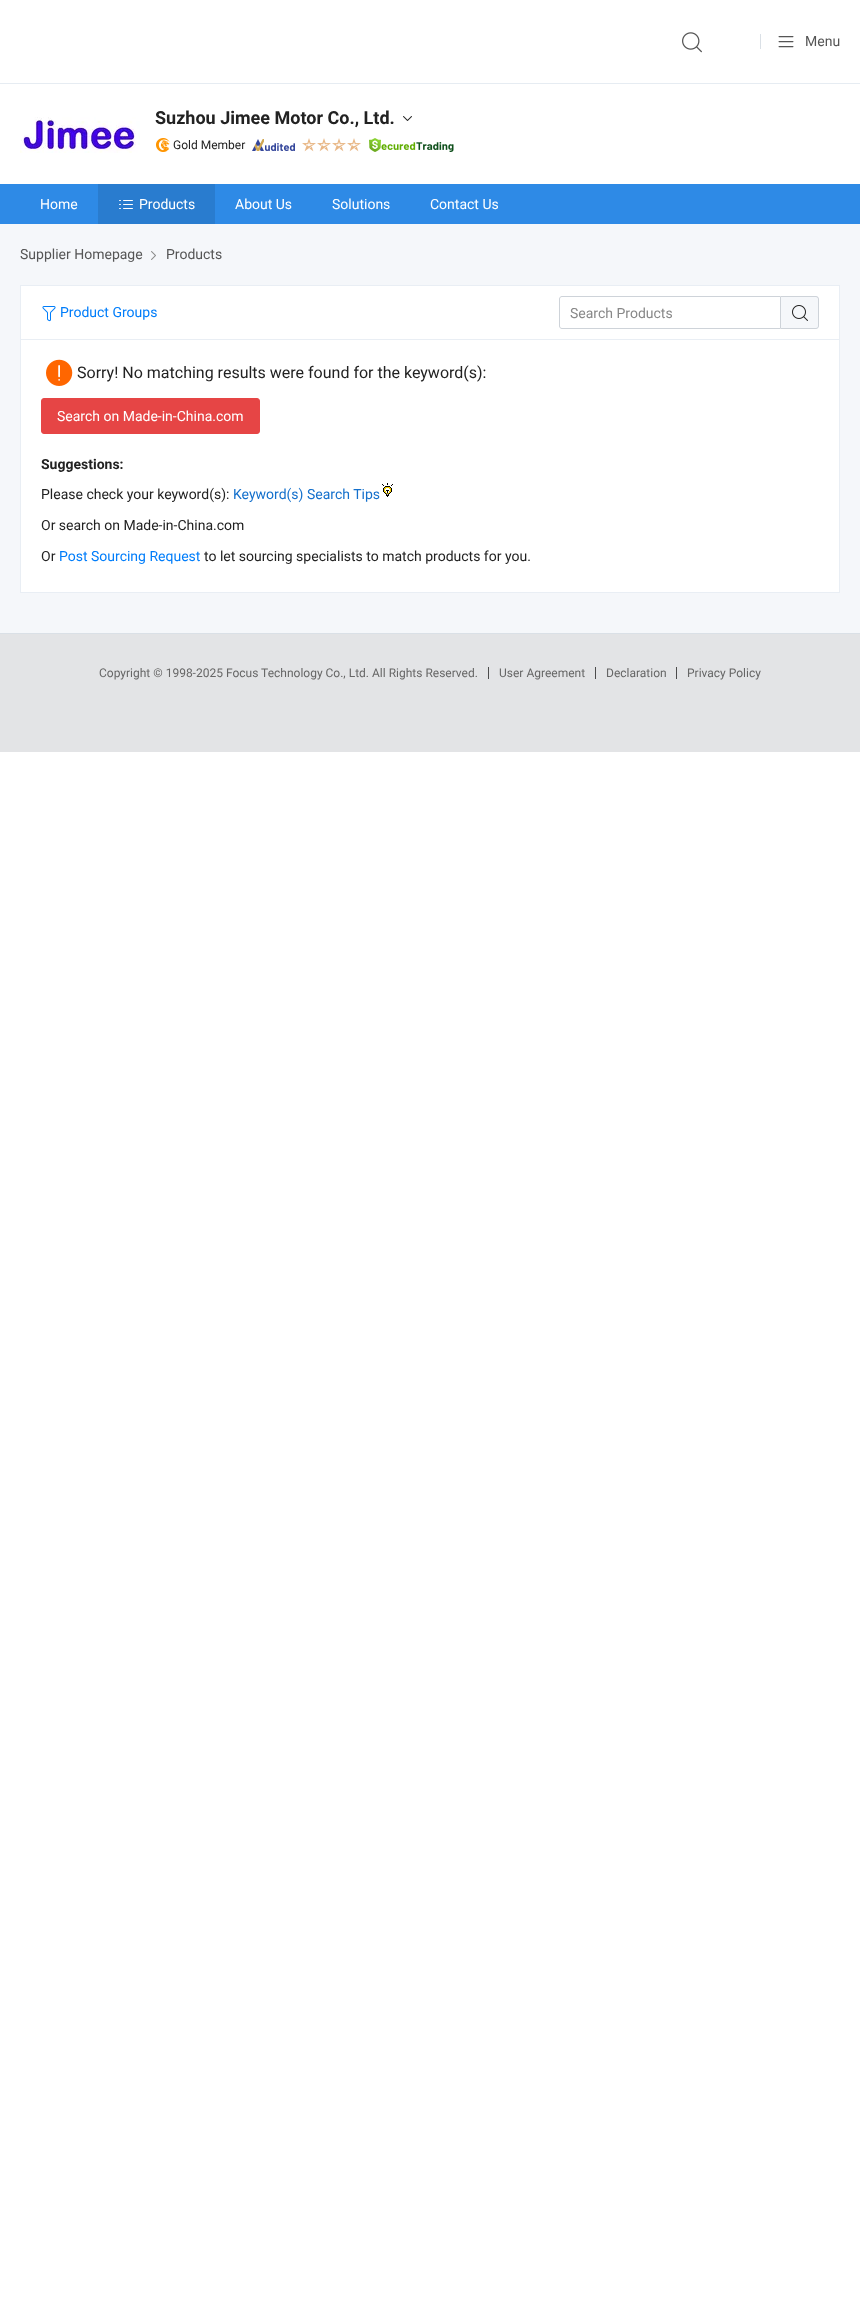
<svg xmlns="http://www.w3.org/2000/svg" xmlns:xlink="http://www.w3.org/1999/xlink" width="860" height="2301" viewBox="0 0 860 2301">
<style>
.cls-1{font:14px Roboto;fill:#555555}
.cls-2{font:bold 18px Roboto;fill:#222222}
.cls-3{font:12px Roboto;fill:#222222}
.cls-4{font:14px Roboto;fill:#ffffff}
.cls-5{font:14px Roboto;fill:#007dfa}
.cls-6{font:14px Roboto;fill:#888888}
.cls-7{font:16px Roboto;fill:#222222}
.cls-8{font:bold 14px Roboto;fill:#222222}
.cls-9{font:14px Roboto;fill:#222222}
.cls-10{font:14px Roboto;fill:#1470cc}
.cls-11{font:12px Roboto;fill:#666666}
</style>
<rect width="100%" height="100%" fill="#ffffff"/>
<image xlink:href="image0.png" x="682" y="32" width="20" height="21"/>
<rect fill="#dae0e6" x="760" y="34" width="1" height="15"/>
<image xlink:href="image1.png" x="778" y="36" width="16" height="12"/>
<rect fill="#e6ecf2" x="0" y="83" width="860" height="1"/>
<image xlink:href="image2.png" x="20" y="117" width="120" height="36"/>
<image xlink:href="image3.png" x="403" y="116" width="9" height="5"/>
<image xlink:href="image4.png" x="156" y="138" width="14" height="14"/>
<image xlink:href="image5.png" x="252" y="139" width="43" height="12"/>
<image xlink:href="image6.png" x="302" y="138" width="14" height="14"/>
<image xlink:href="image6.png" x="317" y="138" width="14" height="14"/>
<image xlink:href="image6.png" x="332" y="138" width="14" height="14"/>
<image xlink:href="image6.png" x="347" y="138" width="14" height="14"/>
<image xlink:href="image7.png" x="369" y="138" width="85" height="14"/>
<rect fill="#2e8ae6" x="0" y="184" width="860" height="40"/>
<rect fill="#297ccf" x="98" y="184" width="117" height="40"/>
<image xlink:href="image8.png" x="119" y="200" width="14" height="9"/>
<rect fill="#f5f7fa" x="0" y="224" width="860" height="409"/>
<image xlink:href="image9.png" x="151" y="251" width="5" height="9"/>
<rect fill="#ffffff" stroke="#e9eef4" x="20.5" y="285.5" width="819" height="54"/>
<image xlink:href="image10.png" x="42" y="306" width="14" height="16"/>
<path fill="none" stroke="#ced3d9" d="M562 296.5H780.5V328.5H562C560.5 328.5 559.5 327.5 559.5 326V299C559.5 297.5 560.5 296.5 562 296.5Z"/>
<path fill="#f5f7fa" d="M781 296H816C817.5 296 819 297.5 819 299V326C819 327.5 817.5 329 816 329H781Z"/>
<path fill="#ced3d9" fill-rule="evenodd" d="M781 296H816C817.5 296 819 297.5 819 299V326C819 327.5 817.5 329 816 329H781ZM781 297H816C817 297 818 298 818 299V326C818 327 817 328 816 328H781Z"/>
<image xlink:href="image11.png" x="792" y="305" width="16" height="16"/>
<rect fill="#ffffff" stroke="#e9eef4" x="20.5" y="339.5" width="819" height="253"/>
<image xlink:href="image12.png" x="46" y="359" width="27" height="27"/>
<rect fill="#e64545" stroke="#e64545" x="41.5" y="398.5" width="218" height="35" rx="2.5"/>
<image xlink:href="image13.png" x="382" y="483" width="11" height="14"/>
<rect fill="#e3e4e6" x="0" y="634" width="860" height="118"/>
<rect fill="#dae0e6" x="0" y="633" width="860" height="1"/>
<rect fill="#4c4c4c" x="488" y="667" width="1" height="12"/>
<rect fill="#4c4c4c" x="595" y="667" width="1" height="12"/>
<rect fill="#4c4c4c" x="676" y="667" width="1" height="12"/>
<text class="cls-1" x="805" y="46">Menu</text>
<text class="cls-2" x="155" y="124">Suzhou Jimee Motor Co., Ltd.</text>
<text class="cls-3" x="173" y="149">Gold Member</text>
<text class="cls-4" x="40" y="209">Home</text>
<text class="cls-4" x="139" y="209">Products</text>
<text class="cls-4" x="235" y="209">About Us</text>
<text class="cls-4" x="332" y="209">Solutions</text>
<text class="cls-4" x="430" y="209">Contact Us</text>
<text class="cls-1" x="20" y="259">Supplier Homepage</text>
<text class="cls-1" x="166" y="259">Products</text>
<text class="cls-5" x="60" y="317">Product Groups</text>
<text class="cls-6" x="570" y="318">Search Products</text>
<text class="cls-7" x="77" y="378">Sorry! No matching results were found for the keyword(s):</text>
<text class="cls-4" x="57" y="421">Search on Made-in-China.com</text>
<text class="cls-8" x="41" y="469">Suggestions:</text>
<text class="cls-9" x="41" y="499">Please check your keyword(s):</text>
<text class="cls-10" x="233" y="499">Keyword(s) Search Tips</text>
<text class="cls-9" x="41" y="530">Or search on Made-in-China.com</text>
<text class="cls-9" x="41" y="561">Or</text>
<text class="cls-5" x="59" y="561">Post Sourcing Request</text>
<text class="cls-9" x="204" y="561">to let sourcing specialists to match products for you.</text>
<text class="cls-11" x="99" y="677">Copyright © 1998-2025 Focus Technology Co., Ltd. All Rights Reserved.</text>
<text class="cls-11" x="499" y="677">User Agreement</text>
<text class="cls-11" x="606" y="677">Declaration</text>
<text class="cls-11" x="687" y="677">Privacy Policy</text>
</svg>
